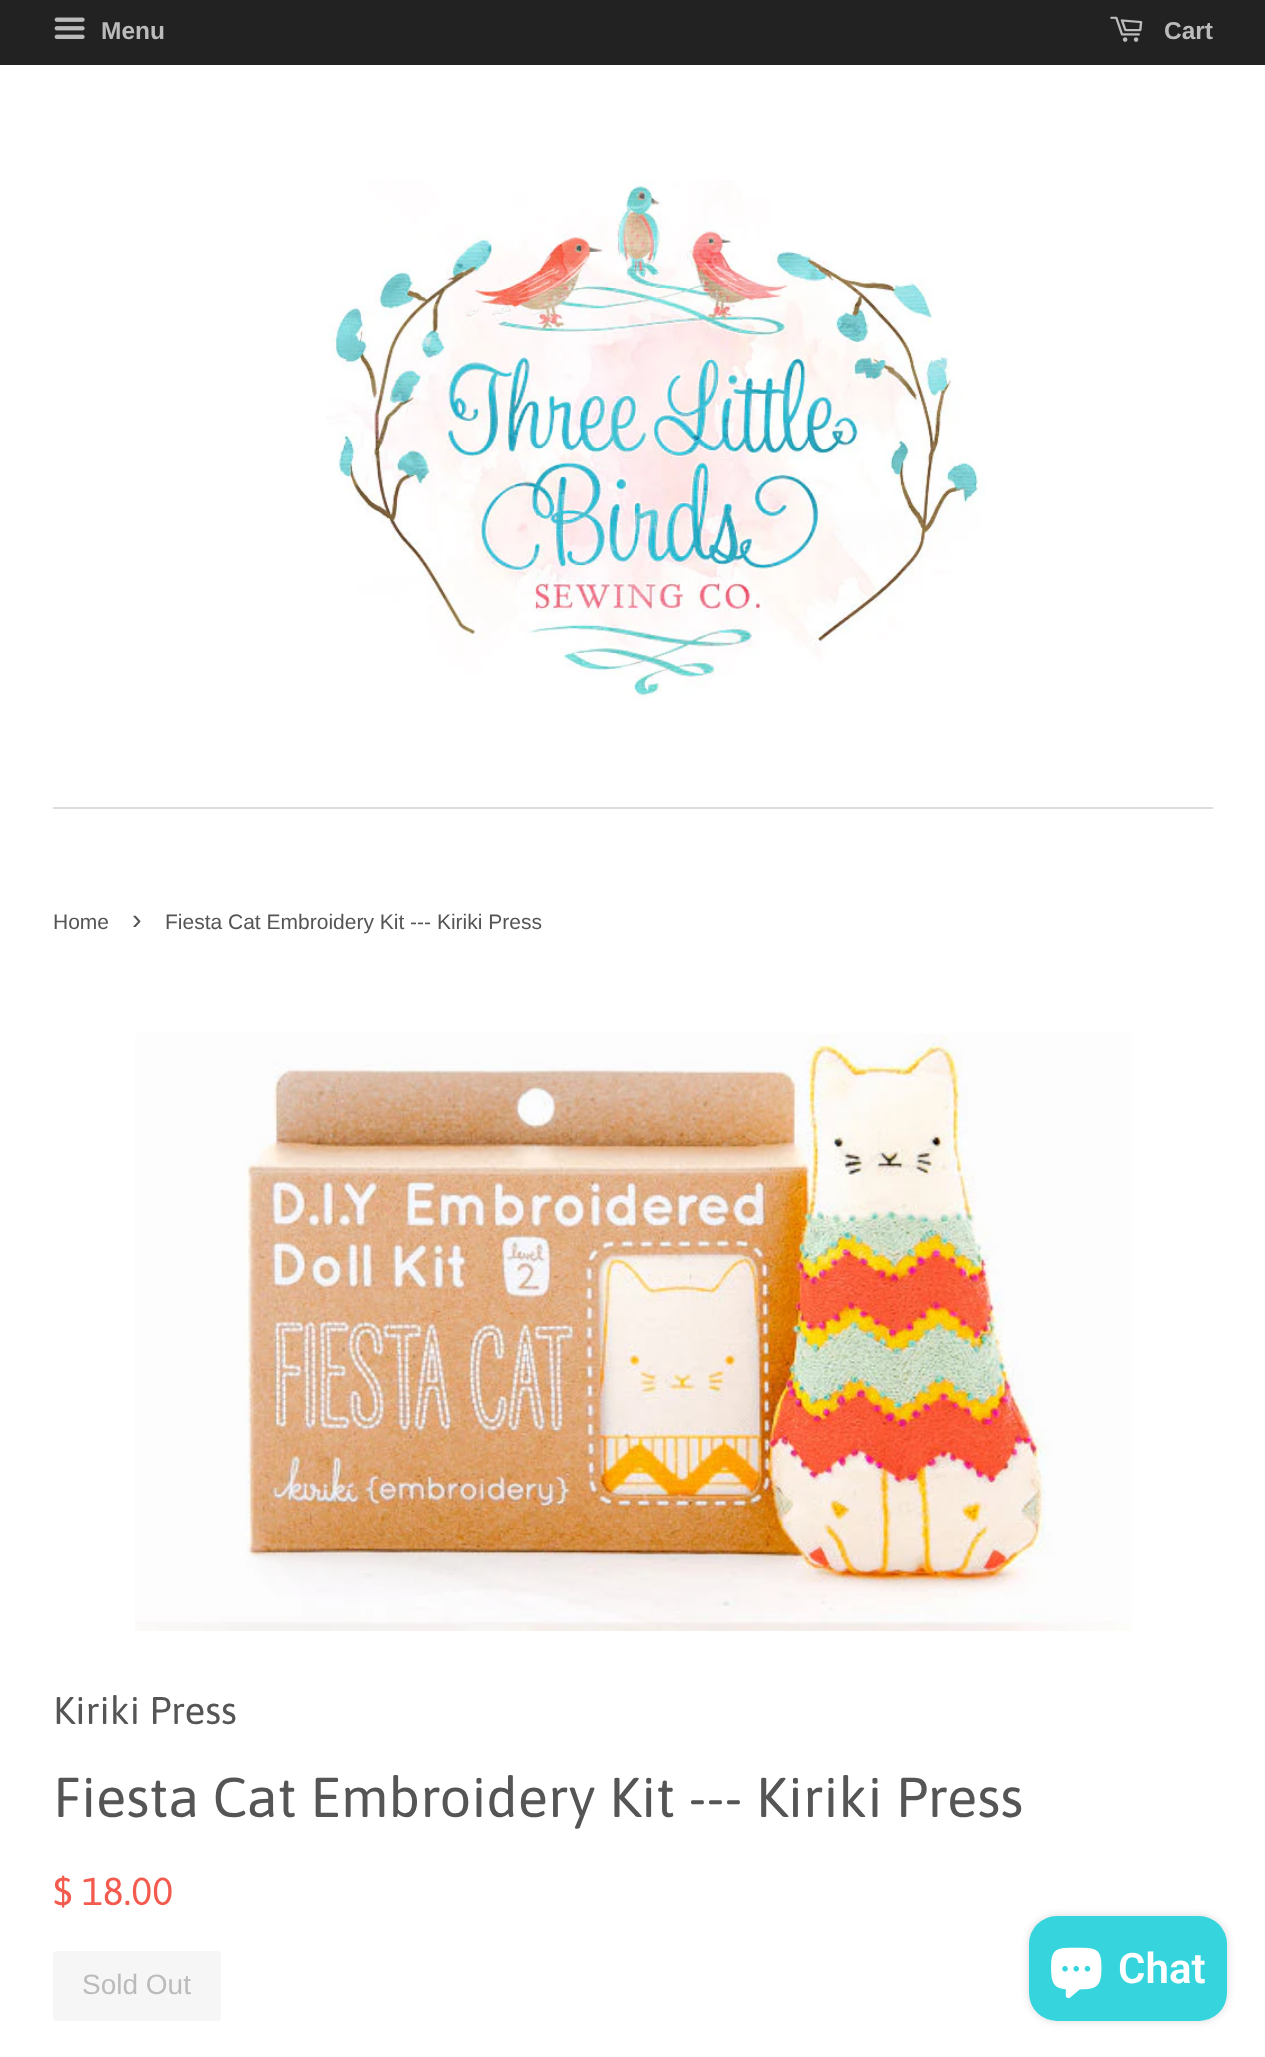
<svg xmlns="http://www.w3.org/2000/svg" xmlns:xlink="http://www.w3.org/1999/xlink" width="1265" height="2057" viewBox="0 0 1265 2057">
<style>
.cls-1{font:bold 24.5px Liberation Sans;fill:#bbbbbb}
.cls-2{font:21px Liberation Sans;fill:#555555}
.cls-3{font:29px Liberation Sans;fill:#555555}
.cls-4{font:38.5px Asap;fill:#555555}
.cls-5{font:56px Asap;fill:#555555}
.cls-6{font:39px Asap;fill:#f45b4f}
.cls-7{font:28px Liberation Sans;fill:#bbbbbb}
.cls-8{font:600 42px Roboto;fill:#ffffff}
</style>
<rect width="100%" height="100%" fill="#ffffff"/>
<rect fill="#222222" x="0" y="0" width="1265" height="65"/>
<image xlink:href="image0.png" x="54" y="17" width="31" height="22"/>
<image xlink:href="image1.png" x="1110" y="16" width="33" height="26"/>
<rect fill="#dddddd" x="53" y="807" width="1160" height="2"/>
<image xlink:href="image2.png" x="326" y="180" width="659" height="520"/>
<image xlink:href="image3.png" x="135" y="1033" width="997" height="598"/>
<rect fill="#f6f6f6" x="53" y="1951" width="168" height="70" rx="4"/>
<rect fill="#000000" fill-opacity="0.15" filter="blur(4.5px)" x="1029" y="1916" width="198" height="105" rx="28"/>
<rect fill="#36d4dc" x="1029" y="1916" width="198" height="105" rx="28"/>
<image xlink:href="image4.png" x="1051" y="1947" width="51" height="52"/>
<text class="cls-1" x="101" y="39">Menu</text>
<text class="cls-1" x="1164" y="39">Cart</text>
<text class="cls-2" x="53" y="929">Home</text>
<text class="cls-3" x="132" y="929">›</text>
<text class="cls-2" x="165" y="929">Fiesta Cat Embroidery Kit --- Kiriki Press</text>
<text class="cls-4" x="53" y="1724">Kiriki Press</text>
<text class="cls-5" x="53" y="1817">Fiesta Cat Embroidery Kit --- Kiriki Press</text>
<text class="cls-6" x="53" y="1905">$ 18.00</text>
<text class="cls-7" x="82" y="1994">Sold Out</text>
<text class="cls-8" x="1118" y="1983">Chat</text>
</svg>
